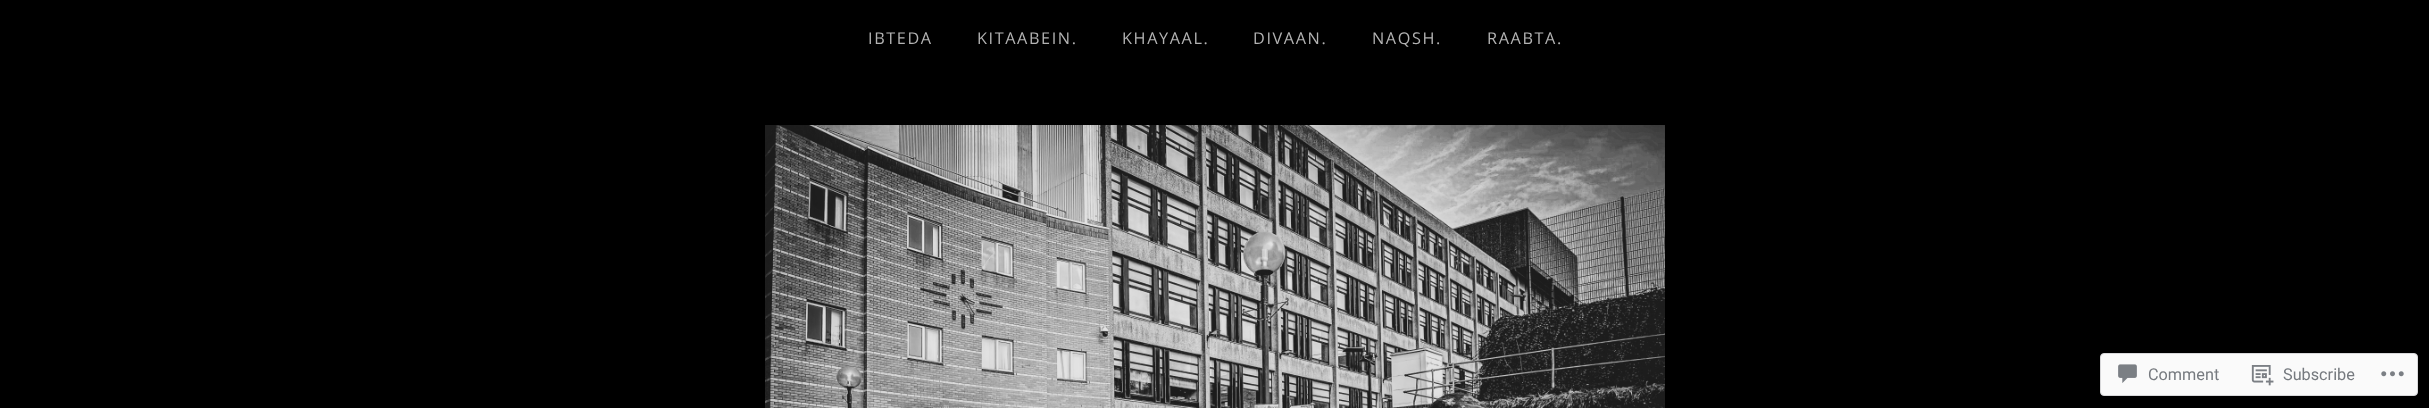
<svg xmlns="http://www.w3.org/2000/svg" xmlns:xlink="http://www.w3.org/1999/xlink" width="2429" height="408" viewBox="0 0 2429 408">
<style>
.cls-1{font:16.25px Open Sans;letter-spacing:1.6px;fill:#b3b3b3}
.cls-2{font:16.25px Roboto;fill:#767a7f}
</style>
<rect width="100%" height="100%" fill="#000000"/>
<image xlink:href="image0.png" x="765" y="125" width="900" height="283"/>
<rect fill="#fafafa" stroke="#d8d8da" x="2100.5" y="353.5" width="317" height="42" rx="3.5"/>
<image xlink:href="image1.png" x="2118" y="364" width="19" height="19"/>
<image xlink:href="image2.png" x="2251" y="365" width="23" height="21"/>
<image xlink:href="image3.png" x="2381" y="371" width="23" height="6"/>
<text class="cls-1" x="868" y="44">IBTEDA</text>
<text class="cls-1" x="977" y="44">KITAABEIN.</text>
<text class="cls-1" x="1122" y="44">KHAYAAL.</text>
<text class="cls-1" x="1253" y="44">DIVAAN.</text>
<text class="cls-1" x="1372" y="44">NAQSH.</text>
<text class="cls-1" x="1487" y="44">RAABTA.</text>
<text class="cls-2" x="2148" y="380">Comment</text>
<text class="cls-2" x="2283" y="380">Subscribe</text>
</svg>
